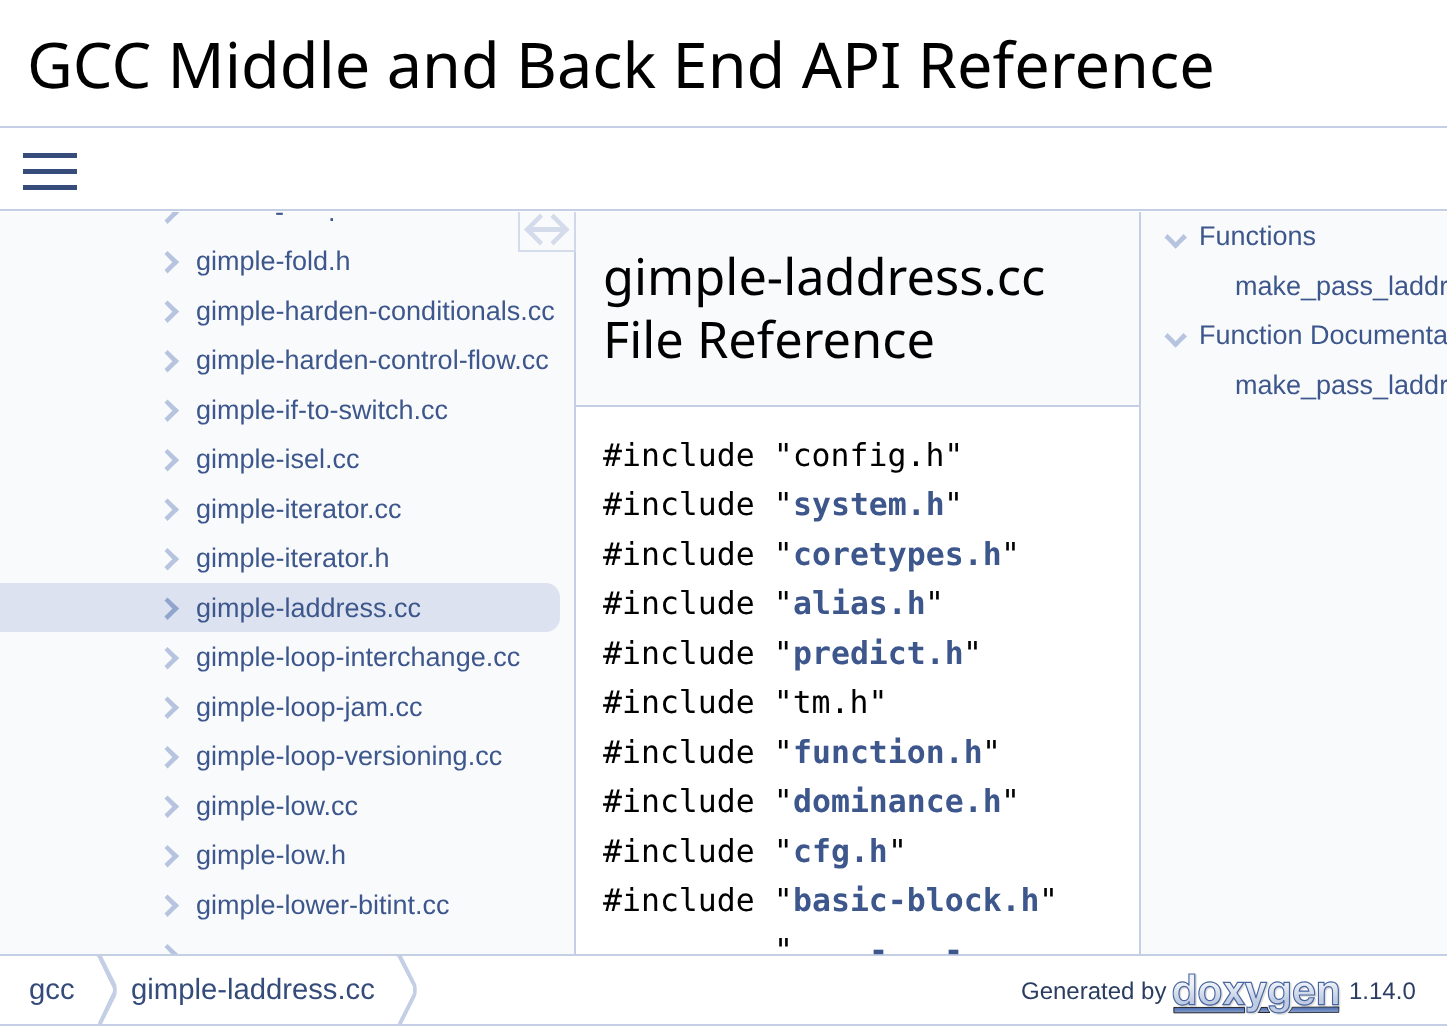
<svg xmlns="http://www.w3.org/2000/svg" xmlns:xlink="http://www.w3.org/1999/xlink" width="1447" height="1027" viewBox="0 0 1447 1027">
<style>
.cls-1{font:63px Noto Sans;fill:#000000}
.cls-2{font:27px Liberation Sans;fill:#3d578c}
.cls-3{font:50.5px Noto Sans;fill:#000000}
.cls-4{font:31.5px DejaVu Sans Mono;fill:#000000}
.cls-5{font:bold 31.5px DejaVu Sans Mono;fill:#3d578c}
.cls-6{font:29.25px Liberation Sans;fill:#354c7b}
.cls-7{font:24px Liberation Sans;fill:#2a3d61}
</style>
<defs>
<clipPath id="clip1"><rect x="0" y="212" width="590" height="742"/></clipPath>
<clipPath id="clip2"><rect x="0" y="212" width="574" height="742"/></clipPath>
<clipPath id="clip3"><rect x="0" y="956" width="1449" height="68"/></clipPath>
</defs>
<rect width="100%" height="100%" fill="#ffffff"/>
<rect fill="#c4cfe5" x="0" y="126" width="1447" height="2"/>
<rect fill="#364d7c" x="23" y="169" width="54" height="5"/>
<rect fill="#364d7c" x="23" y="153" width="54" height="5"/>
<rect fill="#364d7c" x="23" y="185" width="54" height="5"/>
<rect fill="#c4cfe5" x="0" y="209" width="1447" height="2"/>
<rect fill="#f9fafc" x="0" y="212" width="574" height="742"/>
<rect fill="#c4cfe5" x="574" y="252" width="2" height="702"/>
<rect fill="#e9edf5" x="574" y="212" width="2" height="40"/>
<g clip-path="url(#clip1)">
<rect fill="none" stroke="#c4cfe5" stroke-opacity="0.7" stroke-width="2" x="519" y="210" width="56" height="41"/>
</g>
<path fill="#d4dcec" d="M524 229.5L540 213.5L543 217L527.5 232.5Z"/>
<path fill="#d4dcec" d="M524 229.5L527.5 226.5L543 242L540 245.5ZM550.5 217L553.5 213.5L569.5 229.5L566 232.5Z"/>
<path fill="#d4dcec" d="M550.5 242L566 226.5L569.5 229.5L553.5 245.5Z"/>
<rect fill="#d4dcec" x="529" y="227" width="36" height="5"/>
<g clip-path="url(#clip2)">
<path fill="#b6c4df" d="M164.5 204.5L167.5 201.5L179 212.5L175.5 216Z"/>
<path fill="#b6c4df" d="M164.5 220.5L175.5 209.5L179 212.5L167.5 224Z"/>
</g>
<path fill="#b6c4df" d="M164.5 254L167.5 251L179 262L175.5 265.5Z"/>
<path fill="#b6c4df" d="M164.5 270L175.5 259L179 262L167.5 273.5ZM164.5 303.5L167.5 300.5L179 311.5L175.5 315Z"/>
<path fill="#b6c4df" d="M164.5 319.5L175.5 308.5L179 311.5L167.5 323ZM164.5 353L167.5 350L179 361L175.5 364.5Z"/>
<path fill="#b6c4df" d="M164.5 369L175.5 358L179 361L167.5 372.5ZM164.5 402.5L167.5 399.5L179 410.5L175.5 414Z"/>
<path fill="#b6c4df" d="M164.5 418.5L175.5 407.5L179 410.5L167.5 422ZM164.5 452L167.5 449L179 460L175.5 463.5Z"/>
<path fill="#b6c4df" d="M164.5 468L175.5 457L179 460L167.5 471.5ZM164.5 501.5L167.5 498.5L179 509.5L175.5 513Z"/>
<path fill="#b6c4df" d="M164.5 517.5L175.5 506.5L179 509.5L167.5 521ZM164.5 551L167.5 548L179 559L175.5 562.5Z"/>
<path fill="#b6c4df" d="M164.5 567L175.5 556L179 559L167.5 570.5Z"/>
<path fill="#dce2ef" d="M0 583H546C553.5 583 560 589.5 560 597V618C560 625.5 553.5 632 546 632H0Z"/>
<path fill="#90a5ce" d="M164.5 600.5L167.5 597.5L179 608.5L175.5 612Z"/>
<path fill="#90a5ce" d="M164.5 616.5L175.5 605.5L179 608.5L167.5 620Z"/>
<path fill="#b6c4df" d="M164.5 650L167.5 647L179 658L175.5 661.5Z"/>
<path fill="#b6c4df" d="M164.5 666L175.5 655L179 658L167.5 669.5ZM164.5 699.5L167.5 696.5L179 707.5L175.5 711Z"/>
<path fill="#b6c4df" d="M164.5 715.5L175.5 704.5L179 707.5L167.5 719ZM164.5 749L167.5 746L179 757L175.5 760.5Z"/>
<path fill="#b6c4df" d="M164.5 765L175.5 754L179 757L167.5 768.5ZM164.5 798.5L167.5 795.5L179 806.5L175.5 810Z"/>
<path fill="#b6c4df" d="M164.5 814.5L175.5 803.5L179 806.5L167.5 818ZM164.5 848L167.5 845L179 856L175.5 859.5Z"/>
<path fill="#b6c4df" d="M164.5 864L175.5 853L179 856L167.5 867.5ZM164.5 897.5L167.5 894.5L179 905.5L175.5 909Z"/>
<path fill="#b6c4df" d="M164.5 913.5L175.5 902.5L179 905.5L167.5 917Z"/>
<g clip-path="url(#clip2)">
<path fill="#b6c4df" d="M164.5 947L167.5 944L179 955L175.5 958.5Z"/>
<path fill="#b6c4df" d="M164.5 963L175.5 952L179 955L167.5 966.5Z"/>
</g>
<rect fill="#f9fafc" x="576" y="212" width="563" height="193"/>
<rect fill="#c4cfe5" x="576" y="405" width="563" height="2"/>
<rect fill="#f9fafc" x="1141" y="212" width="306" height="742"/>
<rect fill="#c4cfe5" x="1139" y="212" width="2" height="742"/>
<path fill="#b6c4df" d="M1183.5 234L1187 237.5L1175.5 248.5L1172.5 245.5Z"/>
<path fill="#b6c4df" d="M1167.5 234L1179 245.5L1175.5 248.5L1164.5 237.5Z"/>
<path fill="#b6c4df" d="M1183.5 333L1187 336.5L1175.5 347.5L1172.5 344.5Z"/>
<path fill="#b6c4df" d="M1167.5 333L1179 344.5L1175.5 347.5L1164.5 336.5Z"/>
<rect fill="#c4cfe5" x="0" y="954" width="1447" height="2"/>
<rect fill="#c4cfe5" x="0" y="1024" width="1447" height="2"/>
<g clip-path="url(#clip3)">
<path fill="#c4cfe5" d="M100 952C96 956 94 963 93 969C94 964 95 960 97 956L112 987C113 988 113 992 112 993L98 1023L100 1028L116 996C117 993 117 987 116 984Z"/>
</g>
<path fill="#ffffff" d="M97 956L112 987C113 988 113 992 112 993L97 1024C88 1005 88 975 97 956Z"/>
<g clip-path="url(#clip3)">
<path fill="#c4cfe5" d="M400 952C397 955 396 958 395 961L397 956L413 987C413 988 413 992 413 993L398 1023L400 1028L416 996C417 993 417 987 416 984Z"/>
</g>
<path fill="#ffffff" d="M397 956L413 987C413 988 413 992 413 993L397 1024C388 1005 388 975 397 956Z"/>
<image xlink:href="image0.png" x="1172" y="973" width="169" height="42"/>
<text class="cls-1" x="27" y="88">GCC Middle and Back End API Reference</text>
<text class="cls-2" x="275" y="221">-</text>
<text class="cls-2" x="328" y="221">.</text>
<text class="cls-2"><tspan x="196" y="270">gimple-fold.h</tspan><tspan x="196" y="320">gimple-harden-conditionals.cc</tspan><tspan x="196" y="369">gimple-harden-control-flow.cc</tspan><tspan x="196" y="419">gimple-if-to-switch.cc</tspan><tspan x="196" y="468">gimple-isel.cc</tspan><tspan x="196" y="518">gimple-iterator.cc</tspan><tspan x="196" y="567">gimple-iterator.h</tspan><tspan x="196" y="617">gimple-laddress.cc</tspan><tspan x="196" y="666">gimple-loop-interchange.cc</tspan><tspan x="196" y="716">gimple-loop-jam.cc</tspan><tspan x="196" y="765">gimple-loop-versioning.cc</tspan><tspan x="196" y="815">gimple-low.cc</tspan><tspan x="196" y="864">gimple-low.h</tspan><tspan x="196" y="914">gimple-lower-bitint.cc</tspan></text>
<text class="cls-3"><tspan x="603" y="295">gimple-laddress.cc</tspan><tspan x="603" y="358">File Reference</tspan></text>
<text class="cls-4"><tspan x="603" y="466">#include "config.h"</tspan><tspan x="603" y="515">#include "</tspan></text>
<text class="cls-5" x="793" y="515">system.h</text>
<text class="cls-4" x="944" y="515">"</text>
<text class="cls-4" x="603" y="565">#include "</text>
<text class="cls-5" x="793" y="565">coretypes.h</text>
<text class="cls-4" x="1001" y="565">"</text>
<text class="cls-4" x="603" y="614">#include "</text>
<text class="cls-5" x="793" y="614">alias.h</text>
<text class="cls-4" x="925" y="614">"</text>
<text class="cls-4" x="603" y="664">#include "</text>
<text class="cls-5" x="793" y="664">predict.h</text>
<text class="cls-4" x="963" y="664">"</text>
<text class="cls-4"><tspan x="603" y="713">#include "tm.h"</tspan><tspan x="603" y="763">#include "</tspan></text>
<text class="cls-5" x="793" y="763">function.h</text>
<text class="cls-4" x="982" y="763">"</text>
<text class="cls-4" x="603" y="812">#include "</text>
<text class="cls-5" x="793" y="812">dominance.h</text>
<text class="cls-4" x="1001" y="812">"</text>
<text class="cls-4" x="603" y="862">#include "</text>
<text class="cls-5" x="793" y="862">cfg.h</text>
<text class="cls-4" x="888" y="862">"</text>
<text class="cls-4" x="603" y="911">#include "</text>
<text class="cls-5" x="793" y="911">basic-block.h</text>
<text class="cls-4" x="1039" y="911">"</text>
<text class="cls-4" x="774" y="961">"</text>
<text class="cls-5" x="869" y="961">-</text>
<text class="cls-5" x="944" y="961">-</text>
<text class="cls-2" x="1199" y="245">Functions</text>
<text class="cls-2" x="1235" y="295">make_pass_laddr</text>
<text class="cls-2" x="1199" y="344">Function Documenta</text>
<text class="cls-2" x="1235" y="394">make_pass_laddr</text>
<text class="cls-6" x="29" y="999">gcc</text>
<text class="cls-6" x="131" y="999">gimple-laddress.cc</text>
<text class="cls-7" x="1021" y="999">Generated by</text>
<text class="cls-7" x="1349" y="999">1.14.0</text>
</svg>
